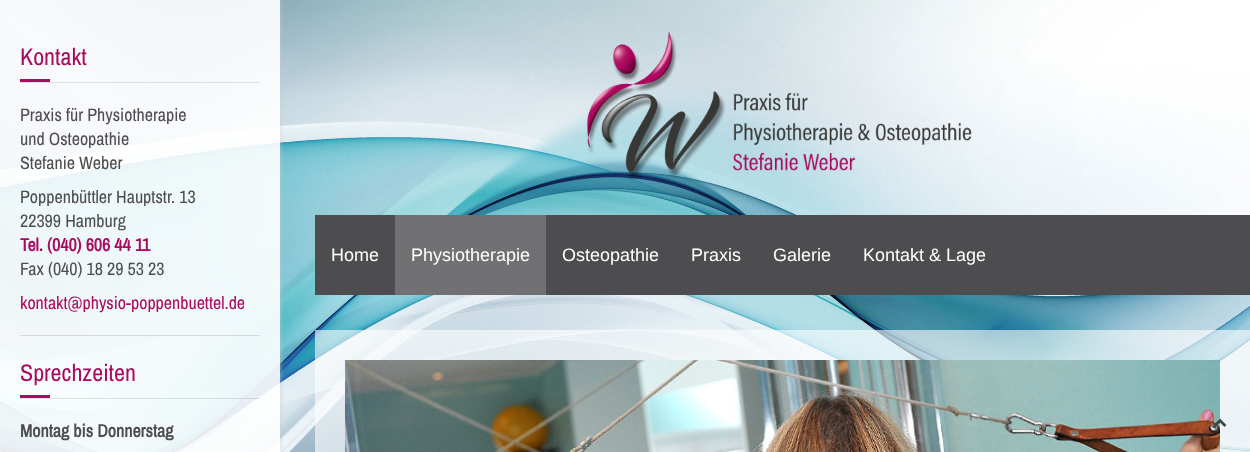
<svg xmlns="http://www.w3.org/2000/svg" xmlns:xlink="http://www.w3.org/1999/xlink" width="1250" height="452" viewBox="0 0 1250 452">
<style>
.cls-1{font:24px Archivo Narrow;fill:#aa0a5f}
.cls-2{font:18px Archivo Narrow;fill:#4d4c4f}
.cls-3{font:bold 18px Archivo Narrow;fill:#aa0a5f}
.cls-4{font:18px Archivo Narrow;fill:#aa0a5f}
.cls-5{font:bold 18px Archivo Narrow;fill:#4d4c4f}
.cls-6{font:18px Liberation Sans;fill:#ffffff}
</style>
<defs>
<clipPath id="clip1"><rect x="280" y="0" width="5" height="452"/></clipPath>
</defs>
<rect width="100%" height="100%" fill="#ffffff"/>
<image xlink:href="image0.png" x="0" y="0" width="1250" height="452"/>
<g clip-path="url(#clip1)">
<rect fill="#cccccc" fill-opacity="0.7" filter="blur(2.5px)" x="0" y="0" width="280" height="452"/>
</g>
<rect fill="#ffffff" fill-opacity="0.9" x="0" y="0" width="280" height="452"/>
<rect fill="#dee0e1" x="20" y="82" width="240" height="1"/>
<rect fill="#aa0a5f" x="20" y="79" width="30" height="3"/>
<rect fill="#cccccc" fill-opacity="0.7" x="20" y="335" width="240" height="1"/>
<rect fill="#000000" fill-opacity="0.1" x="20" y="398" width="240" height="1"/>
<rect fill="#aa0a5f" x="20" y="395" width="30" height="3"/>
<image xlink:href="image1.png" x="586" y="31" width="386" height="149"/>
<rect fill="#4d4c4f" x="315" y="215" width="935" height="80"/>
<rect fill="#717072" x="395" y="215" width="151" height="80"/>
<rect fill="#ffffff" fill-opacity="0.6" x="315" y="330" width="935" height="122"/>
<image xlink:href="image2.png" x="345" y="360" width="875" height="92"/>
<image xlink:href="image3.png" x="1213" y="418" width="14" height="9"/>
<text class="cls-1" x="20" y="65">Kontakt</text>
<text class="cls-2"><tspan x="20" y="121">Praxis für Physiotherapie</tspan><tspan x="20" y="145">und Osteopathie</tspan><tspan x="20" y="169">Stefanie Weber</tspan><tspan x="20" y="203">Poppenbüttler Hauptstr. 13</tspan><tspan x="20" y="227">22399 Hamburg</tspan></text>
<text class="cls-3" x="20" y="251">Tel. (040) 606 44 11</text>
<text class="cls-2" x="20" y="275">Fax (040) 18 29 53 23</text>
<text class="cls-4" x="20" y="309">kontakt@physio-poppenbuettel.de</text>
<text class="cls-1" x="20" y="381">Sprechzeiten</text>
<text class="cls-5" x="20" y="437">Montag bis Donnerstag</text>
<text class="cls-6" x="331" y="261">Home</text>
<text class="cls-6" x="411" y="261">Physiotherapie</text>
<text class="cls-6" x="562" y="261">Osteopathie</text>
<text class="cls-6" x="691" y="261">Praxis</text>
<text class="cls-6" x="773" y="261">Galerie</text>
<text class="cls-6" x="863" y="261">Kontakt &amp; Lage</text>
</svg>
